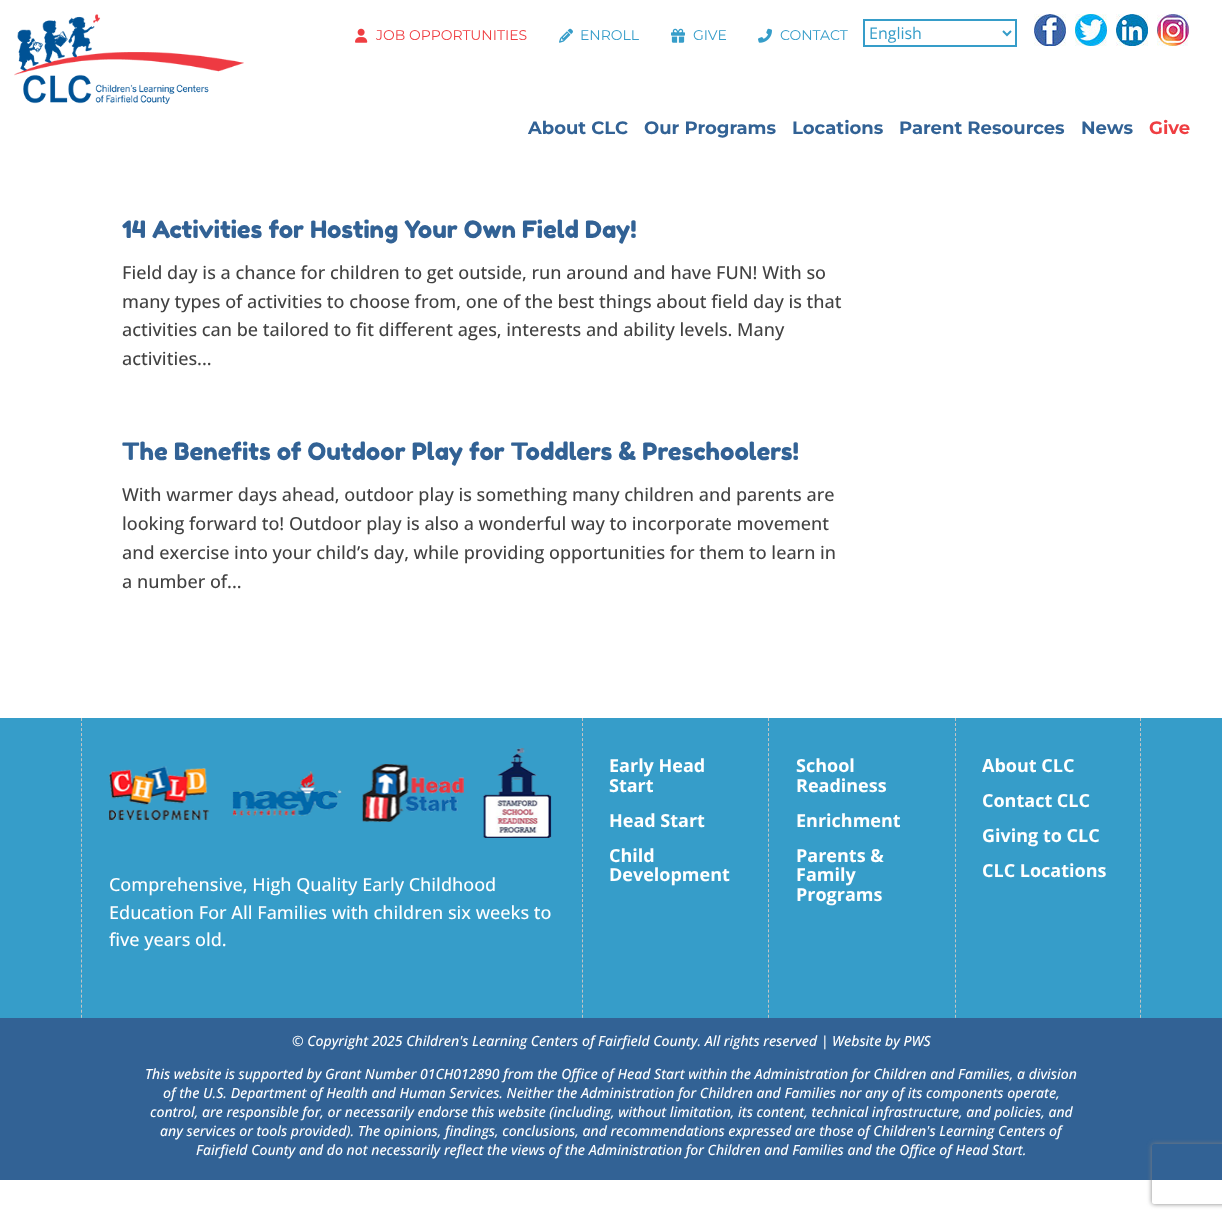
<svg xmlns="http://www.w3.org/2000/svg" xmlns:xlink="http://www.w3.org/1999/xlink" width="1222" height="1218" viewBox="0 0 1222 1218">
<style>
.cls-1{font:100 14px Montserrat;fill:#ef3e42}
.cls-2{font:100 14px Montserrat;fill:#369dc9}
.cls-3{font:16px Open Sans;fill:#369dc9}
.cls-4{font:100 18px 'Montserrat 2';fill:#326295}
.cls-5{font:100 18px 'Montserrat 2';fill:#ef3e42}
.cls-6{font:24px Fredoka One;fill:#326295}
.cls-7{font:500 18px Open Sans;fill:#424242}
.cls-8{font:bold 18px Open Sans;fill:#ffffff}
.cls-9{font:500 18px Open Sans;fill:#ffffff}
.cls-10{font:italic 500 14px Open Sans;fill:#ffffff}
</style>
<defs>
<clipPath id="clip1"><path d="M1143 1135H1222V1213H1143ZM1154 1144H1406C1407 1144 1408 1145 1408 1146V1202C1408 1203 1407 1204 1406 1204H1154C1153 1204 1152 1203 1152 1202V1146C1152 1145 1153 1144 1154 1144Z" clip-rule="evenodd"/></clipPath>
</defs>
<rect width="100%" height="100%" fill="#ffffff"/>
<image xlink:href="image0.png" x="14" y="14" width="230" height="90"/>
<image xlink:href="image1.png" x="355" y="28" width="13" height="15"/>
<image xlink:href="image2.png" x="559" y="28" width="14" height="15"/>
<image xlink:href="image3.png" x="671" y="28" width="14" height="15"/>
<image xlink:href="image4.png" x="758" y="28" width="14" height="15"/>
<rect fill="none" stroke="#369dc9" stroke-width="2" x="864" y="20" width="152" height="26"/>
<path fill="none" stroke="#369dc9" stroke-width="2" d="M1003 31L1007 35L1011 31"/>
<image xlink:href="image5.png" x="1034" y="14" width="32" height="32"/>
<image xlink:href="image6.png" x="1075" y="14" width="32" height="32"/>
<image xlink:href="image7.png" x="1116" y="14" width="32" height="32"/>
<image xlink:href="image8.png" x="1157" y="14" width="32" height="32"/>
<rect fill="#369dc9" x="0" y="718" width="1222" height="300"/>
<path fill="none" stroke="#c4c4c4" stroke-dasharray="3 2.03" d="M582.5 718V1018"/>
<path fill="none" stroke="#c4c4c4" stroke-dasharray="3 2.03" d="M768.5 718V1018"/>
<path fill="none" stroke="#c4c4c4" stroke-dasharray="3 2.03" d="M1140.5 718V1018"/>
<path fill="none" stroke="#c4c4c4" stroke-dasharray="3 2.03" d="M955.5 718V1018"/>
<path fill="none" stroke="#c4c4c4" stroke-dasharray="3 2.03" d="M81.5 718V1018"/>
<image xlink:href="image9.png" x="109" y="748" width="443" height="90"/>
<rect fill="#326295" x="0" y="1018" width="1222" height="162"/>
<g clip-path="url(#clip1)">
<rect fill="#808080" filter="blur(2.5px)" x="1152" y="1144" width="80" height="60" rx="2"/>
</g>
<text class="cls-1" x="376" y="40">JOB OPPORTUNITIES</text>
<text class="cls-2" x="580" y="40">ENROLL</text>
<text class="cls-2" x="693" y="40">GIVE</text>
<text class="cls-2" x="780" y="40">CONTACT</text>
<text class="cls-3" x="869" y="39">English</text>
<text class="cls-4" x="528" y="134">About CLC</text>
<text class="cls-4" x="644" y="134">Our Programs</text>
<text class="cls-4" x="792" y="134">Locations</text>
<text class="cls-4" x="899" y="134">Parent Resources</text>
<text class="cls-4" x="1081" y="134">News</text>
<text class="cls-5" x="1149" y="134">Give</text>
<text class="cls-6" x="122" y="238">14 Activities for Hosting Your Own Field Day!</text>
<text class="cls-7"><tspan x="122" y="279">Field day is a chance for children to get outside, run around and have FUN! With so</tspan><tspan x="122" y="308">many types of activities to choose from, one of the best things about field day is that</tspan><tspan x="122" y="336">activities can be tailored to fit different ages, interests and ability levels. Many</tspan><tspan x="122" y="365">activities...</tspan></text>
<text class="cls-6" x="122" y="460">The Benefits of Outdoor Play for Toddlers &amp; Preschoolers!</text>
<text class="cls-7"><tspan x="122" y="501">With warmer days ahead, outdoor play is something many children and parents are</tspan><tspan x="122" y="530">looking forward to! Outdoor play is also a wonderful way to incorporate movement</tspan><tspan x="122" y="559">and exercise into your child’s day, while providing opportunities for them to learn in</tspan><tspan x="122" y="588">a number of...</tspan></text>
<text class="cls-8"><tspan x="609" y="772">Early Head</tspan><tspan x="609" y="792">Start</tspan><tspan x="609" y="827">Head Start</tspan><tspan x="609" y="862">Child</tspan><tspan x="609" y="881">Development</tspan></text>
<text class="cls-8"><tspan x="796" y="772">School</tspan><tspan x="796" y="792">Readiness</tspan><tspan x="796" y="827">Enrichment</tspan><tspan x="796" y="862">Parents &amp;</tspan><tspan x="796" y="881">Family</tspan><tspan x="796" y="901">Programs</tspan></text>
<text class="cls-8"><tspan x="982" y="772">About CLC</tspan><tspan x="982" y="807">Contact CLC</tspan><tspan x="982" y="842">Giving to CLC</tspan><tspan x="982" y="877">CLC Locations</tspan></text>
<text class="cls-9"><tspan x="109" y="891">Comprehensive, High Quality Early Childhood</tspan><tspan x="109" y="919">Education For All Families with children six weeks to</tspan><tspan x="109" y="946">five years old.</tspan></text>
<text class="cls-10" x="292" y="1046">© Copyright 2025 Children's Learning Centers of Fairfield County. All rights reserved | Website by PWS</text>
<text class="cls-10" x="145" y="1079">This website is supported by Grant Number 01CH012890 from the Office of Head Start within the Administration for Children and Families, a division</text>
<text class="cls-10" x="163" y="1098">of the U.S. Department of Health and Human Services. Neither the Administration for Children and Families nor any of its components operate,</text>
<text class="cls-10" x="150" y="1117">control, are responsible for, or necessarily endorse this website (including, without limitation, its content, technical infrastructure, and policies, and</text>
<text class="cls-10" x="160" y="1136">any services or tools provided). The opinions, findings, conclusions, and recommendations expressed are those of Children's Learning Centers of</text>
<text class="cls-10" x="196" y="1155">Fairfield County and do not necessarily reflect the views of the Administration for Children and Families and the Office of Head Start.</text>
</svg>
